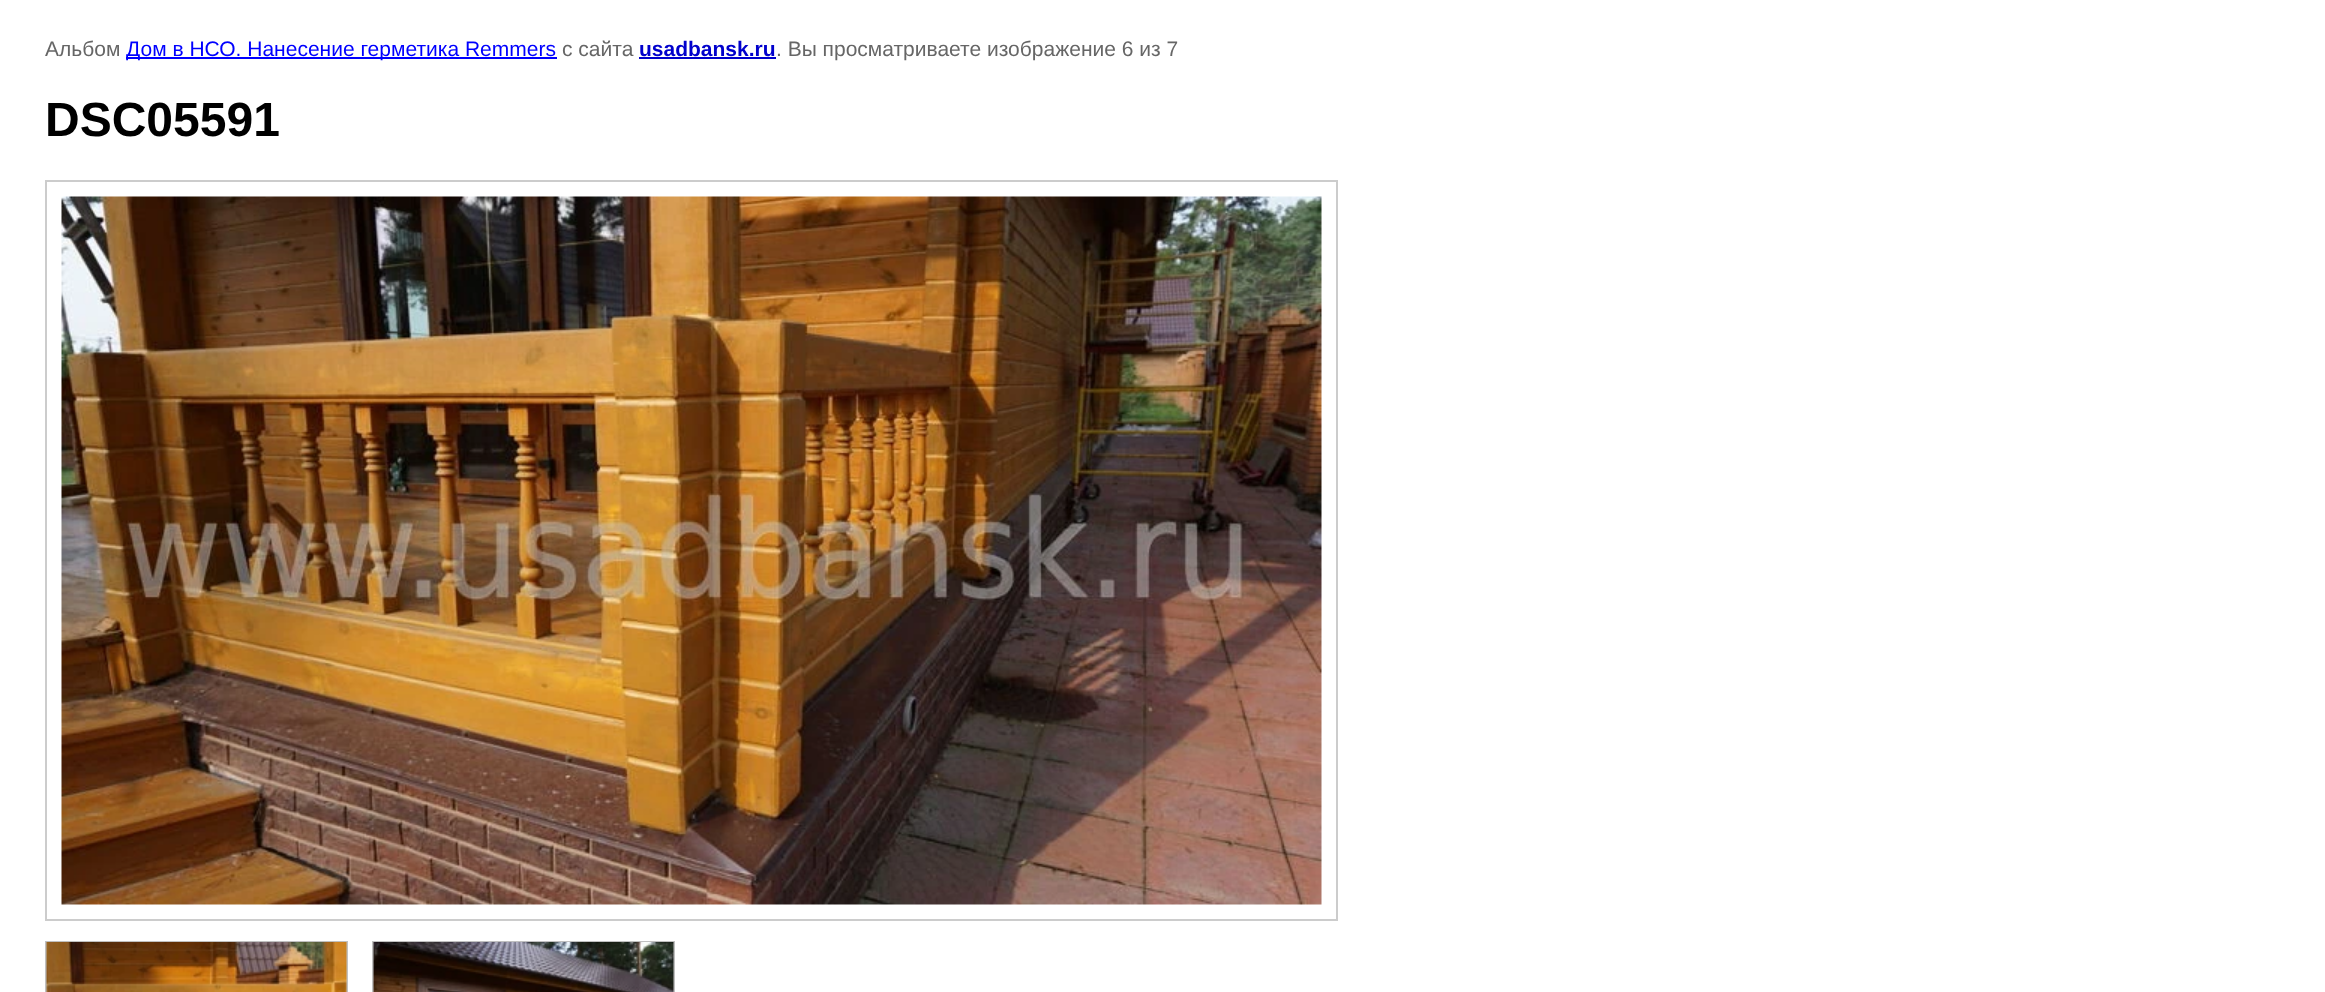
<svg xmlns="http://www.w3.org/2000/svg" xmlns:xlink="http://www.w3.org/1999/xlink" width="2325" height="992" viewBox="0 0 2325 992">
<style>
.cls-1{font:21px Liberation Sans;fill:#666666}
.cls-2{font:21px Liberation Sans;fill:#0000ff}
.cls-3{font:bold 21px Liberation Sans;fill:#0000cc}
.cls-4{font:bold 48px Liberation Sans;fill:#000000}
</style>
<rect width="100%" height="100%" fill="#ffffff"/>
<rect fill="#0000ff" x="126" y="57" width="431" height="2"/>
<rect fill="#0000cc" x="639" y="57" width="137" height="2"/>
<rect fill="none" stroke="#cccccc" stroke-width="2" x="46" y="181" width="1291" height="739"/>
<image xlink:href="image0.png" x="61" y="196" width="1261" height="709"/>
<rect fill="none" stroke="#c0c0c0" stroke-width="2" x="46" y="942" width="301" height="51"/>
<image xlink:href="image1.png" x="46" y="942" width="301" height="50"/>
<rect fill="none" stroke="#c0c0c0" stroke-width="2" x="373" y="942" width="301" height="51"/>
<image xlink:href="image2.png" x="373" y="942" width="301" height="50"/>
<text class="cls-1" x="45" y="56">Альбом</text>
<text class="cls-2" x="126" y="56">Дом в НСО. Нанесение герметика Remmers</text>
<text class="cls-1" x="562" y="56">с сайта</text>
<text class="cls-3" x="639" y="56">usadbansk.ru</text>
<text class="cls-1" x="776" y="56">. Вы просматриваете изображение 6 из 7</text>
<text class="cls-4" x="45" y="136">DSC05591</text>
</svg>
